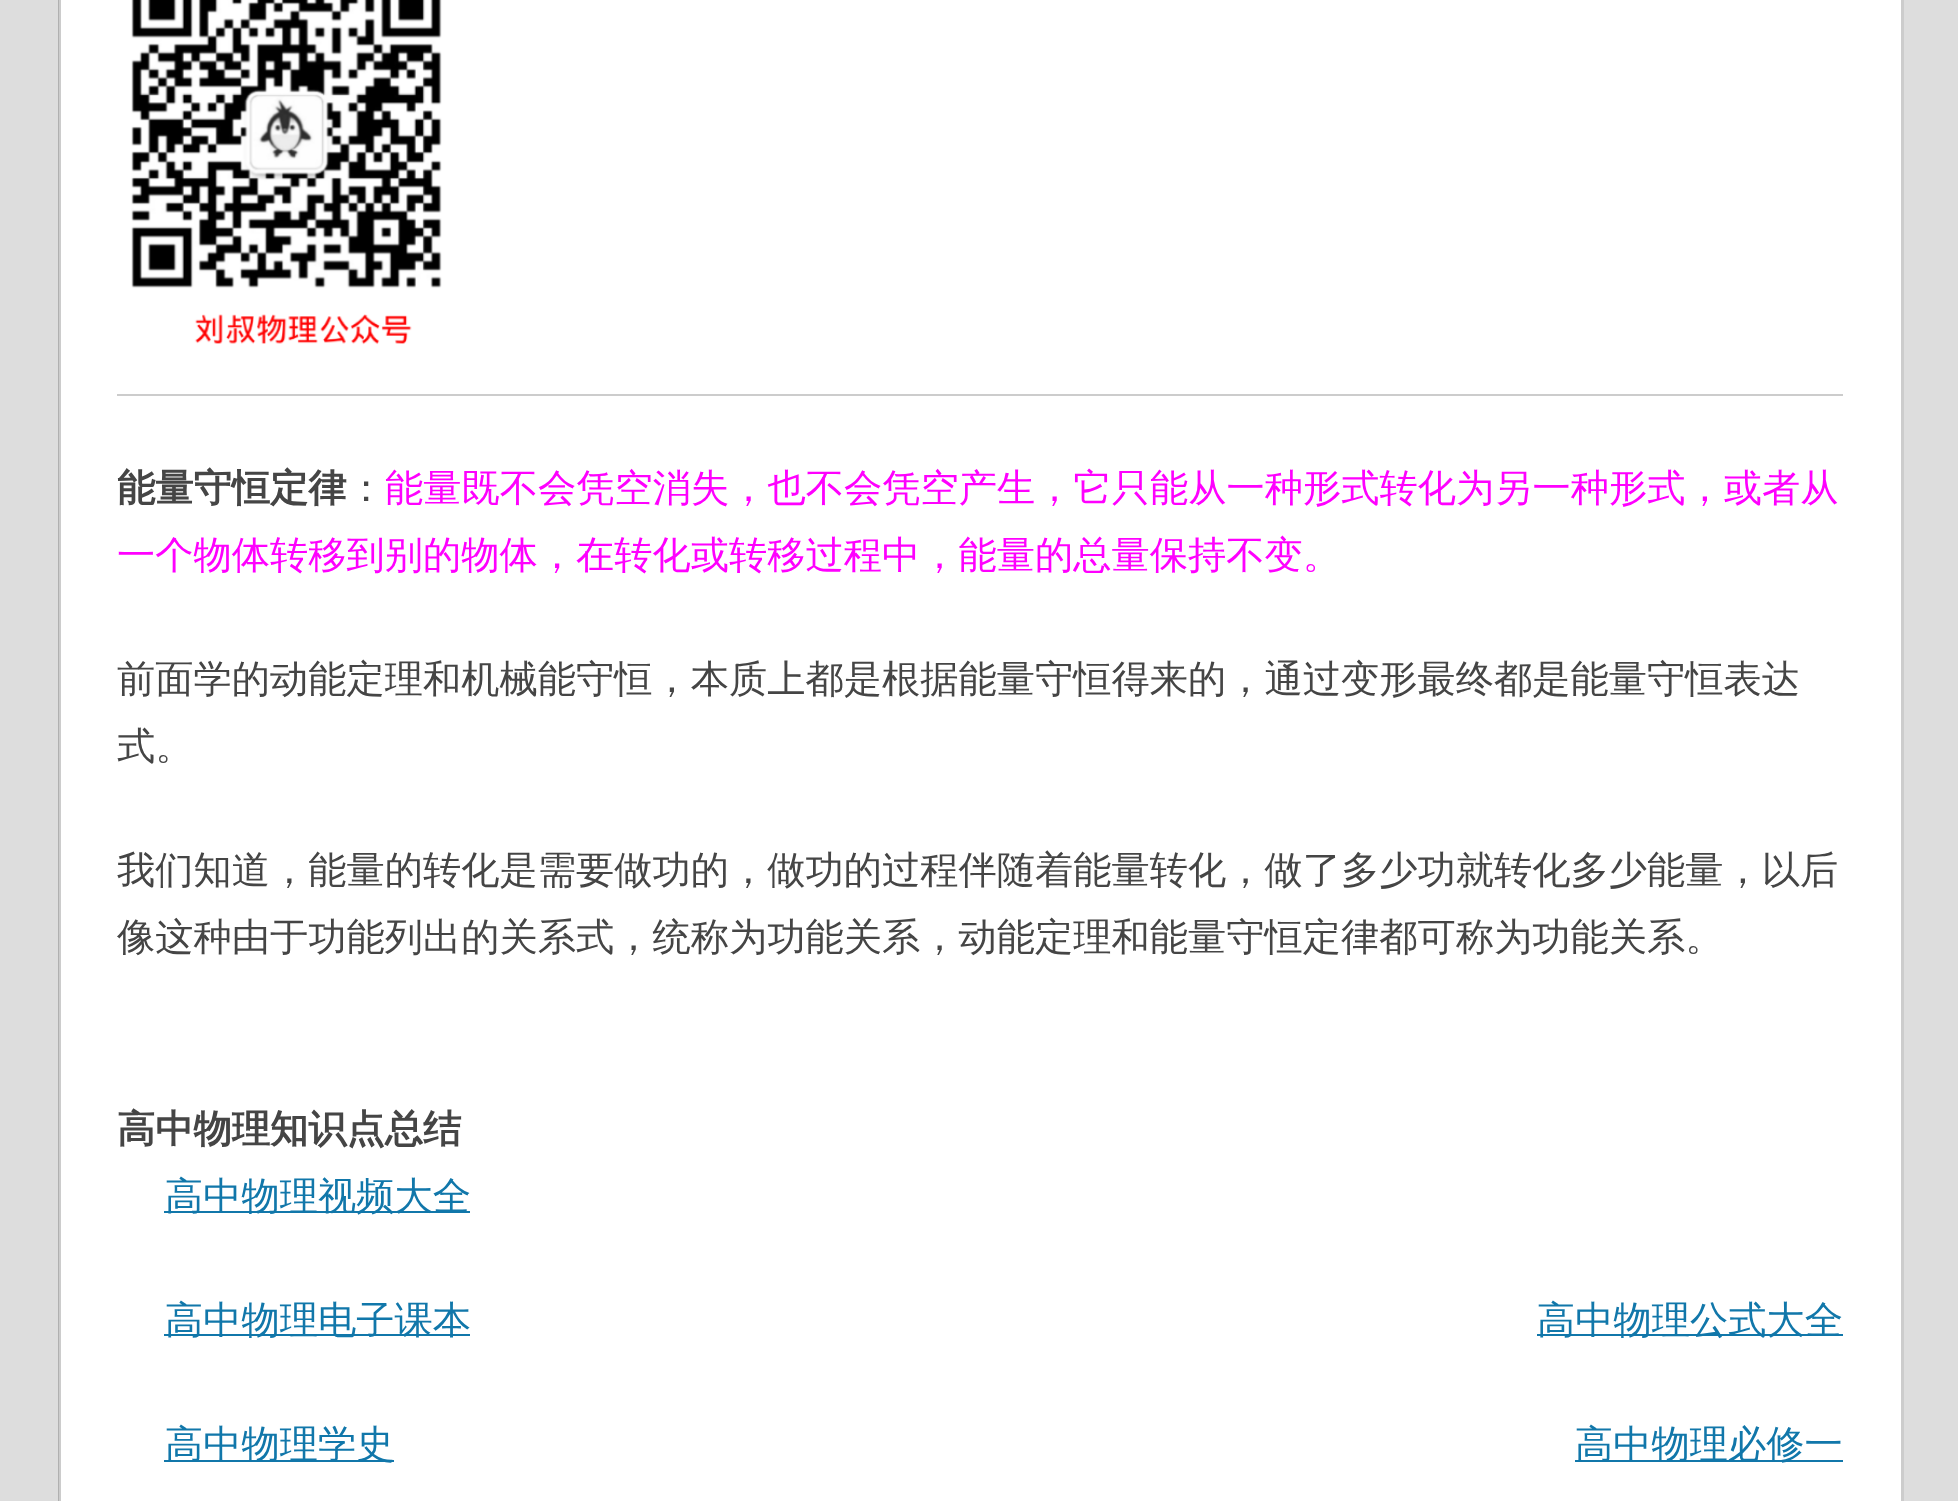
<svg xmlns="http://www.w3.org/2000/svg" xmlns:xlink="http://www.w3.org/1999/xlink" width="1958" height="1501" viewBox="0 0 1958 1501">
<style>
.cls-1{font:bold 38.25px WenQuanYi Zen Hei;fill:#454545}
.cls-2{font:500 38.25px WenQuanYi Zen Hei;fill:#454545}
.cls-3{font:500 38.25px WenQuanYi Zen Hei;fill:#ff00ff}
.cls-4{font:500 38.25px WenQuanYi Zen Hei;fill:#1177aa}
</style>
<rect width="100%" height="100%" fill="#dddddd"/>
<rect fill="#ffffff" x="59" y="0" width="1842" height="1501"/>
<path fill="#cccccc" d="M1904-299V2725L1901 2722V-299Z"/>
<path fill="#000000" fill-opacity="0.2" d="M58 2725V-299H61V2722Z"/>
<image xlink:href="image0.png" x="131" y="0" width="311" height="345"/>
<rect fill="#cccccc" x="117" y="394" width="1726" height="2"/>
<rect fill="#1177aa" x="164" y="1211" width="306" height="2"/>
<rect fill="#1177aa" x="164" y="1334" width="306" height="2"/>
<rect fill="#1177aa" x="1537" y="1334" width="306" height="2"/>
<rect fill="#1177aa" x="164" y="1460" width="230" height="2"/>
<rect fill="#1177aa" x="1575" y="1460" width="268" height="2"/>
<text class="cls-1" x="117" y="501">能量守恒定律</text>
<text class="cls-2" x="347" y="501">：</text>
<text class="cls-3" x="385" y="501">能量既不会凭空消失，也不会凭空产生，它只能从一种形式转化为另一种形式，或者从</text>
<text class="cls-3" x="117" y="568">一个物体转移到别的物体，在转化或转移过程中，能量的总量保持不变。</text>
<text class="cls-2"><tspan x="117" y="692">前面学的动能定理和机械能守恒，本质上都是根据能量守恒得来的，通过变形最终都是能量守恒表达</tspan><tspan x="117" y="759">式。</tspan></text>
<text class="cls-2"><tspan x="117" y="883">我们知道，能量的转化是需要做功的，做功的过程伴随着能量转化，做了多少功就转化多少能量，以后</tspan><tspan x="117" y="950">像这种由于功能列出的关系式，统称为功能关系，动能定理和能量守恒定律都可称为功能关系。</tspan></text>
<text class="cls-1" x="117" y="1142">高中物理知识点总结</text>
<text class="cls-4" x="165" y="1209">高中物理视频大全</text>
<text class="cls-4" x="165" y="1333">高中物理电子课本</text>
<text class="cls-4" x="1537" y="1333">高中物理公式大全</text>
<text class="cls-4" x="165" y="1457">高中物理学史</text>
<text class="cls-4" x="1575" y="1457">高中物理必修一</text>
</svg>
